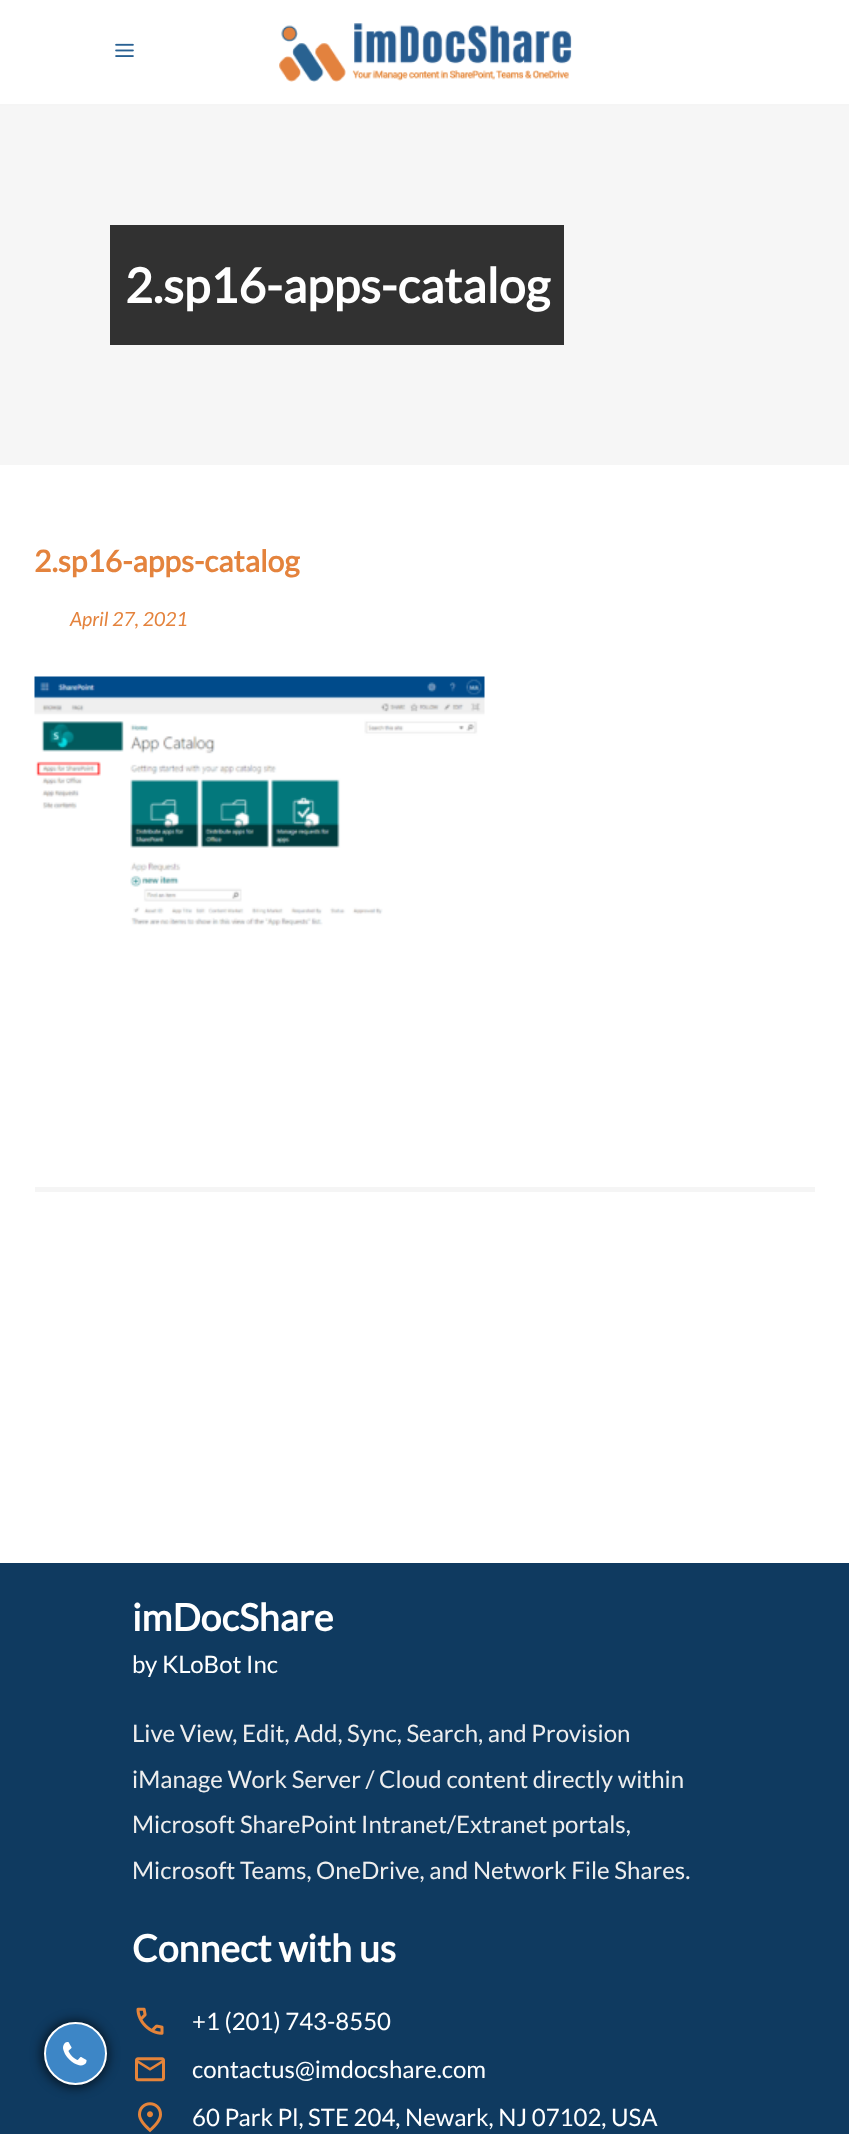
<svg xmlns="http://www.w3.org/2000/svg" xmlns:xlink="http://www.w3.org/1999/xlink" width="849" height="2134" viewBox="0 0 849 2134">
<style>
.cls-1{font:bold 48px Lato;fill:#ffffff}
.cls-2{font:bold 30px Lato;fill:#e4833d}
.cls-3{font:italic 19.5px Lato;fill:#e4833d}
.cls-4{font:bold 37.5px Lato;fill:#ffffff}
.cls-5{font:24px Lato;fill:#ffffff}
.cls-6{font:24px Lato;fill:#eeeeee}
</style>
<rect width="100%" height="100%" fill="#ffffff"/>
<rect fill="#f5f5f5" x="0" y="104" width="849" height="2"/>
<image xlink:href="image0.png" x="115" y="43" width="19" height="14"/>
<image xlink:href="image1.png" x="279" y="23" width="293" height="59"/>
<rect fill="#f6f6f6" x="0" y="106" width="849" height="359"/>
<rect fill="#313131" x="110" y="225" width="454" height="120"/>
<image xlink:href="image2.png" x="34" y="676" width="451" height="250"/>
<rect fill="#f5f5f5" x="35" y="1187" width="780" height="5"/>
<rect fill="#0f3a60" x="0" y="1563" width="849" height="571"/>
<rect fill="#000000" fill-opacity="0.7" filter="blur(6px)" x="42" y="2021" width="66" height="66" rx="33"/>
<circle fill="#3d86c6" stroke="#ffffff" stroke-width="2" cx="75.5" cy="2053.5" r="30.5"/>
<image xlink:href="image3.png" x="63" y="2042" width="24" height="24"/>
<image xlink:href="image4.png" x="136" y="2007" width="28" height="28"/>
<image xlink:href="image5.png" x="135" y="2057" width="30" height="25"/>
<image xlink:href="image6.png" x="138" y="2102" width="24" height="31"/>
<text class="cls-1" x="125" y="303">2.sp16-apps-catalog</text>
<text class="cls-2" x="34" y="572">2.sp16-apps-catalog</text>
<text class="cls-3" x="70" y="626">April 27, 2021</text>
<text class="cls-4" x="132" y="1631">imDocShare</text>
<text class="cls-5" x="132" y="1673">by KLoBot Inc</text>
<text class="cls-6"><tspan x="132" y="1742">Live View, Edit, Add, Sync, Search, and Provision</tspan><tspan x="132" y="1788">iManage Work Server / Cloud content directly within</tspan><tspan x="132" y="1833">Microsoft SharePoint Intranet/Extranet portals,</tspan><tspan x="132" y="1879">Microsoft Teams, OneDrive, and Network File Shares.</tspan></text>
<text class="cls-4" x="132" y="1962">Connect with us</text>
<text class="cls-5" x="192" y="2030">+1 (201) 743-8550</text>
<text class="cls-5" x="192" y="2078">contactus@imdocshare.com</text>
<text class="cls-5" x="192" y="2126">60 Park Pl, STE 204, Newark, NJ 07102, USA</text>
</svg>
